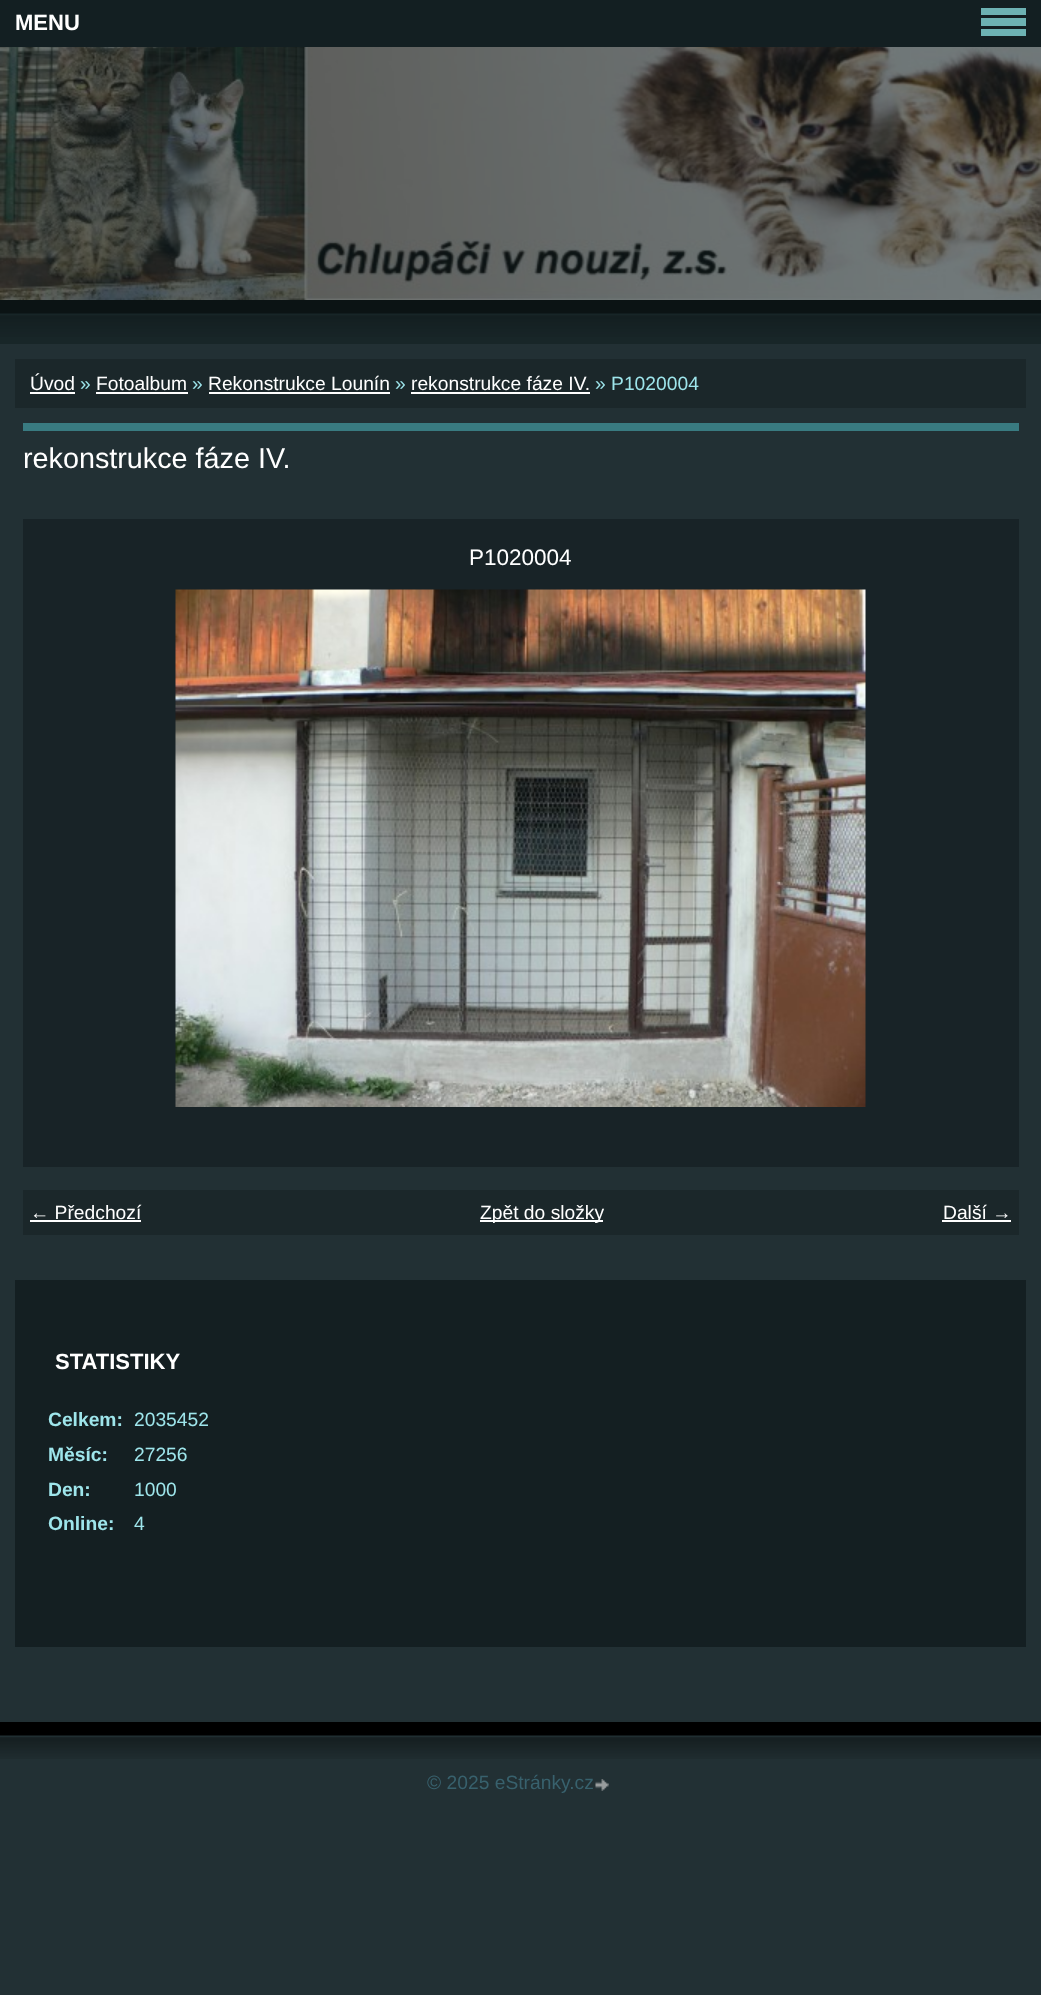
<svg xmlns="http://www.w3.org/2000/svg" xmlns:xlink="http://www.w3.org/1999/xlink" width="1041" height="1995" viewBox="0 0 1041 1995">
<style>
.cls-1{font:bold 22px Liberation Sans;fill:#ffffff}
.cls-2{font:bold 19.25px Liberation Sans;fill:#9ee5eb}
.cls-3{font:19.25px Liberation Sans;fill:#9ee5eb}
.cls-4{font:19.25px Liberation Sans;fill:#ffffff}
.cls-5{font:28.75px Liberation Sans;fill:#ffffff}
.cls-6{font:22.5px Liberation Sans;fill:#ffffff}
.cls-7{font:19.25px Liberation Sans;fill:#38616d}
</style>
<rect width="100%" height="100%" fill="#223034"/>
<rect fill="#131f22" x="0" y="0" width="1041" height="47"/>
<rect fill="#6db2b3" x="981" y="8" width="45" height="7"/>
<rect fill="#6db2b3" x="981" y="18" width="45" height="8"/>
<rect fill="#6db2b3" x="981" y="29" width="45" height="7"/>
<rect fill="#141f22" x="15" y="1280" width="1011" height="367"/>
<rect fill="#1b272a" x="15" y="359" width="1011" height="49"/>
<rect fill="#ffffff" x="30" y="392" width="45" height="2"/>
<rect fill="#ffffff" x="96" y="392" width="92" height="2"/>
<rect fill="#ffffff" x="209" y="392" width="181" height="2"/>
<rect fill="#ffffff" x="411" y="392" width="179" height="2"/>
<rect fill="#397b81" x="23" y="423" width="996" height="8"/>
<rect fill="#182327" x="23" y="519" width="996" height="648"/>
<image xlink:href="image0.png" x="175" y="589" width="691" height="518"/>
<rect fill="#1b272a" x="23" y="1190" width="996" height="45"/>
<rect fill="#ffffff" x="30" y="1220" width="111" height="2"/>
<rect fill="#ffffff" x="480" y="1220" width="123" height="2"/>
<rect fill="#ffffff" x="942" y="1220" width="69" height="2"/>
<image xlink:href="image1.png" x="0" y="300" width="1041" height="37"/>
<image xlink:href="image2.png" x="0" y="47" width="1041" height="253"/>
<rect fill="#132022" fill-opacity="0.6" x="0" y="47" width="1041" height="297"/>
<image xlink:href="image1.png" x="0" y="1722" width="1041" height="37"/>
<image xlink:href="image3.png" x="595" y="1779" width="14" height="12"/>
<text class="cls-1" x="15" y="30">MENU</text>
<text class="cls-1" x="55" y="1369">STATISTIKY</text>
<text class="cls-2" x="48" y="1426">Celkem:</text>
<text class="cls-3" x="134" y="1426">2035452</text>
<text class="cls-2" x="48" y="1461">Měsíc:</text>
<text class="cls-3" x="134" y="1461">27256</text>
<text class="cls-2" x="48" y="1496">Den:</text>
<text class="cls-3" x="134" y="1496">1000</text>
<text class="cls-2" x="48" y="1530">Online:</text>
<text class="cls-3" x="134" y="1530">4</text>
<text class="cls-4" x="30" y="390">Úvod</text>
<text class="cls-3" x="80" y="390">»</text>
<text class="cls-4" x="96" y="390">Fotoalbum</text>
<text class="cls-3" x="192" y="390">»</text>
<text class="cls-4" x="208" y="390">Rekonstrukce Lounín</text>
<text class="cls-3" x="395" y="390">»</text>
<text class="cls-4" x="411" y="390">rekonstrukce fáze IV.</text>
<text class="cls-3" x="595" y="390">» P1020004</text>
<text class="cls-5" x="23" y="468">rekonstrukce fáze IV.</text>
<text class="cls-6" x="469" y="565">P1020004</text>
<text class="cls-4" x="30" y="1219">← Předchozí</text>
<text class="cls-4" x="480" y="1219">Zpět do složky</text>
<text class="cls-4" x="943" y="1219">Další →</text>
<text class="cls-7" x="427" y="1789">© 2025 eStránky.cz</text>
</svg>
